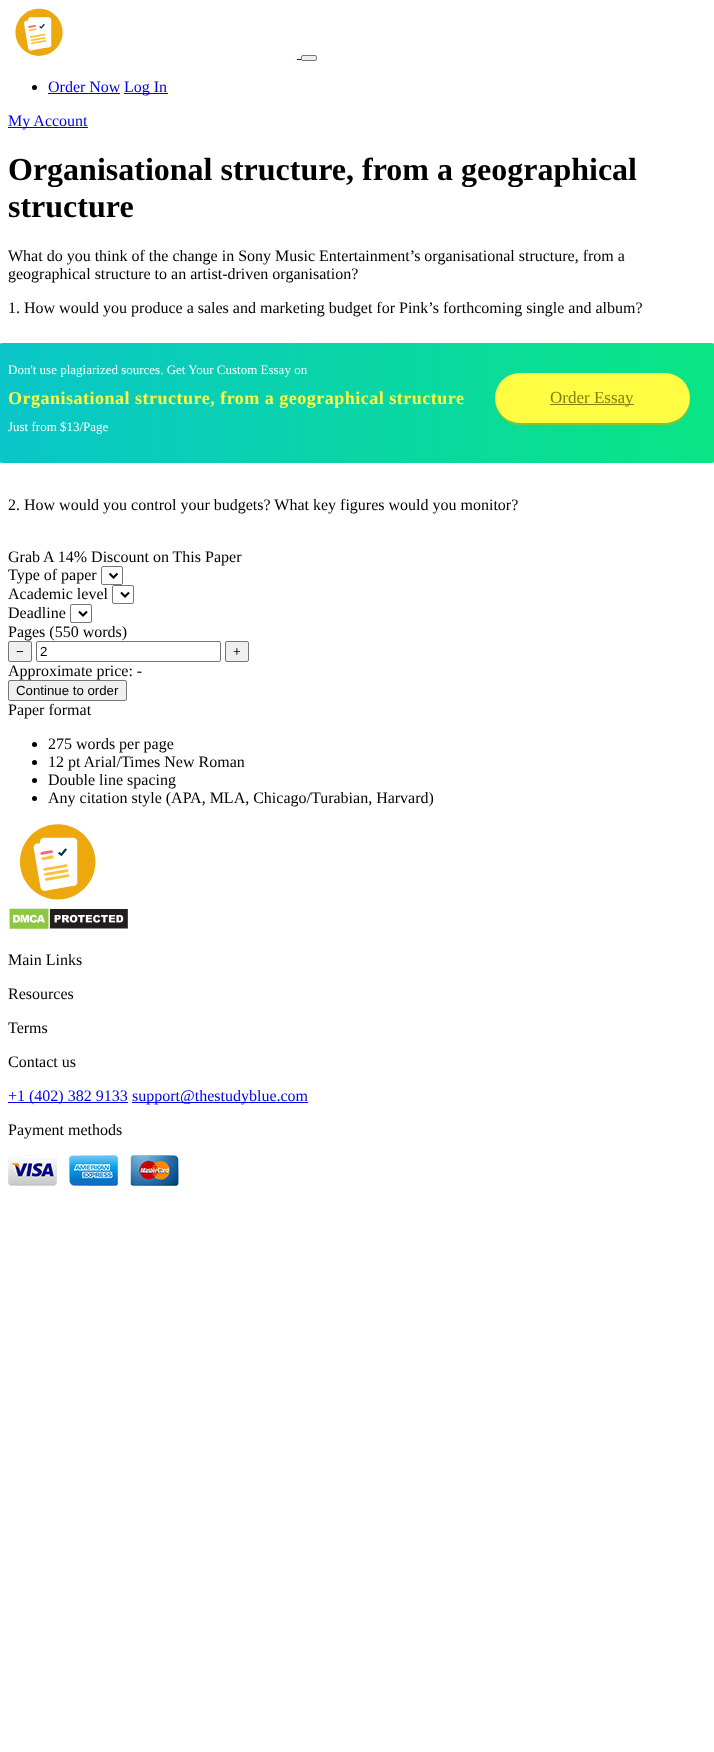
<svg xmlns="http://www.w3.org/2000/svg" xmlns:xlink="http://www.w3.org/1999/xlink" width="714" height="1752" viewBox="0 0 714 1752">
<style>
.cls-1{font:16px Liberation Serif;fill:#0000ee}
.cls-2{font:bold 32px Liberation Serif;fill:#000000}
.cls-3{font:16px Liberation Serif;fill:#000000}
.cls-4{font:13px Liberation Serif;fill:#ffffff}
.cls-5{font:bold 18px Liberation Serif;letter-spacing:0.5px;fill:#fffc45}
.cls-6{font:17px Liberation Serif;fill:#838100}
.cls-7{font:13.25px Liberation Sans;fill:#000000}
</style>
<defs>
<linearGradient id="g1" gradientUnits="userSpaceOnUse" x1="-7" y1="403" x2="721" y2="403"><stop offset="0" stop-color="#0ac5ca"/><stop offset="1" stop-color="#09e683"/></linearGradient>
</defs>
<rect width="100%" height="100%" fill="#ffffff"/>
<image xlink:href="image0.png" x="15" y="8" width="48" height="48"/>
<rect fill="#0000ee" x="297" y="59" width="4" height="1"/>
<rect fill="#efefef" stroke="#767676" x="301.5" y="55.5" width="15" height="5" rx="1.5"/>
<circle fill="#000000" cx="34.5" cy="87.5" r="2.5"/>
<rect fill="#0000ee" x="48" y="93" width="72" height="1"/>
<rect fill="#0000ee" x="124" y="93" width="44" height="1"/>
<rect fill="#0000ee" x="8" y="127" width="80" height="1"/>
<rect fill="url(#g1)" x="-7" y="343" width="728" height="120" rx="10"/>
<path fill="#89c32e" d="M495 399V400C495 414 506 425 520 425H665C679 425 690 414 690 400V399C689 412 678 423 665 423H520C507 423 496 412 495 399Z"/>
<rect fill="#fffc44" x="495" y="373" width="195" height="50" rx="25"/>
<rect fill="#838100" x="550" y="404" width="84" height="1"/>
<rect fill="none" stroke="#767676" x="101.5" y="566.5" width="21" height="18" rx="1.5"/>
<path fill="none" stroke="#000000" stroke-width="2" d="M109.5 573.5L113.5 577.5L117.5 573.5"/>
<rect fill="none" stroke="#767676" x="112.5" y="585.5" width="21" height="18" rx="1.5"/>
<path fill="none" stroke="#000000" stroke-width="2" d="M121 592.5L125 596.5L129 592.5"/>
<rect fill="none" stroke="#767676" x="70.5" y="604.5" width="21" height="18" rx="1.5"/>
<path fill="none" stroke="#000000" stroke-width="2" d="M79 611.5L83 615.5L87 611.5"/>
<rect fill="#efefef" stroke="#767676" x="8.5" y="641.5" width="23" height="20" rx="1.5"/>
<rect fill="none" stroke="#767676" x="36.5" y="641.5" width="184" height="20" rx="1.5"/>
<rect fill="#efefef" stroke="#767676" x="225.5" y="641.5" width="23" height="20" rx="1.5"/>
<rect fill="#efefef" stroke="#767676" x="8.5" y="680.5" width="118" height="20" rx="1.5"/>
<circle fill="#000000" cx="34.5" cy="744.5" r="2.5"/>
<circle fill="#000000" cx="34.5" cy="762.5" r="2.5"/>
<circle fill="#000000" cx="34.5" cy="780.5" r="2.5"/>
<circle fill="#000000" cx="34.5" cy="798.5" r="2.5"/>
<image xlink:href="image1.png" x="19" y="824" width="77" height="76"/>
<image xlink:href="image2.png" x="9" y="908" width="119" height="21"/>
<rect fill="#0000ee" x="8" y="1102" width="120" height="1"/>
<rect fill="#0000ee" x="132" y="1102" width="176" height="1"/>
<image xlink:href="image3.png" x="8" y="1155" width="171" height="31"/>
<text class="cls-1" x="48" y="92">Order Now</text>
<text class="cls-1" x="124" y="92">Log In</text>
<text class="cls-1" x="8" y="126">My Account</text>
<text class="cls-2"><tspan x="8" y="180">Organisational structure, from a geographical</tspan><tspan x="8" y="217">structure</tspan></text>
<text class="cls-3"><tspan x="8" y="261">What do you think of the change in Sony Music Entertainment’s organisational structure, from a</tspan><tspan x="8" y="279">geographical structure to an artist-driven organisation?</tspan></text>
<text class="cls-3" x="8" y="313">1. How would you produce a sales and marketing budget for Pink’s forthcoming single and album?</text>
<text class="cls-4" x="8" y="374">Don't use plagiarized sources. Get Your Custom Essay on</text>
<text class="cls-5" x="8" y="404">Organisational structure, from a geographical structure</text>
<text class="cls-4" x="8" y="431">Just from $13/Page</text>
<text class="cls-6" x="550" y="403">Order Essay</text>
<text class="cls-3" x="8" y="510">2. How would you control your budgets? What key figures would you monitor?</text>
<text class="cls-3"><tspan x="8" y="562">Grab A 14% Discount on This Paper</tspan><tspan x="8" y="580">Type of paper</tspan><tspan x="8" y="599">Academic level</tspan><tspan x="8" y="618">Deadline</tspan><tspan x="8" y="637">Pages (550 words)</tspan></text>
<text class="cls-7" x="16" y="656">−</text>
<text class="cls-7" x="40" y="656">2</text>
<text class="cls-7" x="233" y="656">+</text>
<text class="cls-3" x="8" y="676">Approximate price: -</text>
<text class="cls-7" x="16" y="695">Continue to order</text>
<text class="cls-3" x="8" y="715">Paper format</text>
<text class="cls-3"><tspan x="48" y="749">275 words per page</tspan><tspan x="48" y="767">12 pt Arial/Times New Roman</tspan><tspan x="48" y="785">Double line spacing</tspan><tspan x="48" y="803">Any citation style (APA, MLA, Chicago/Turabian, Harvard)</tspan></text>
<text class="cls-3" x="8" y="965">Main Links</text>
<text class="cls-3" x="8" y="999">Resources</text>
<text class="cls-3" x="8" y="1033">Terms</text>
<text class="cls-3" x="8" y="1067">Contact us</text>
<text class="cls-1" x="8" y="1101">+1 (402) 382 9133</text>
<text class="cls-1" x="132" y="1101">support@thestudyblue.com</text>
<text class="cls-3" x="8" y="1135">Payment methods</text>
</svg>
